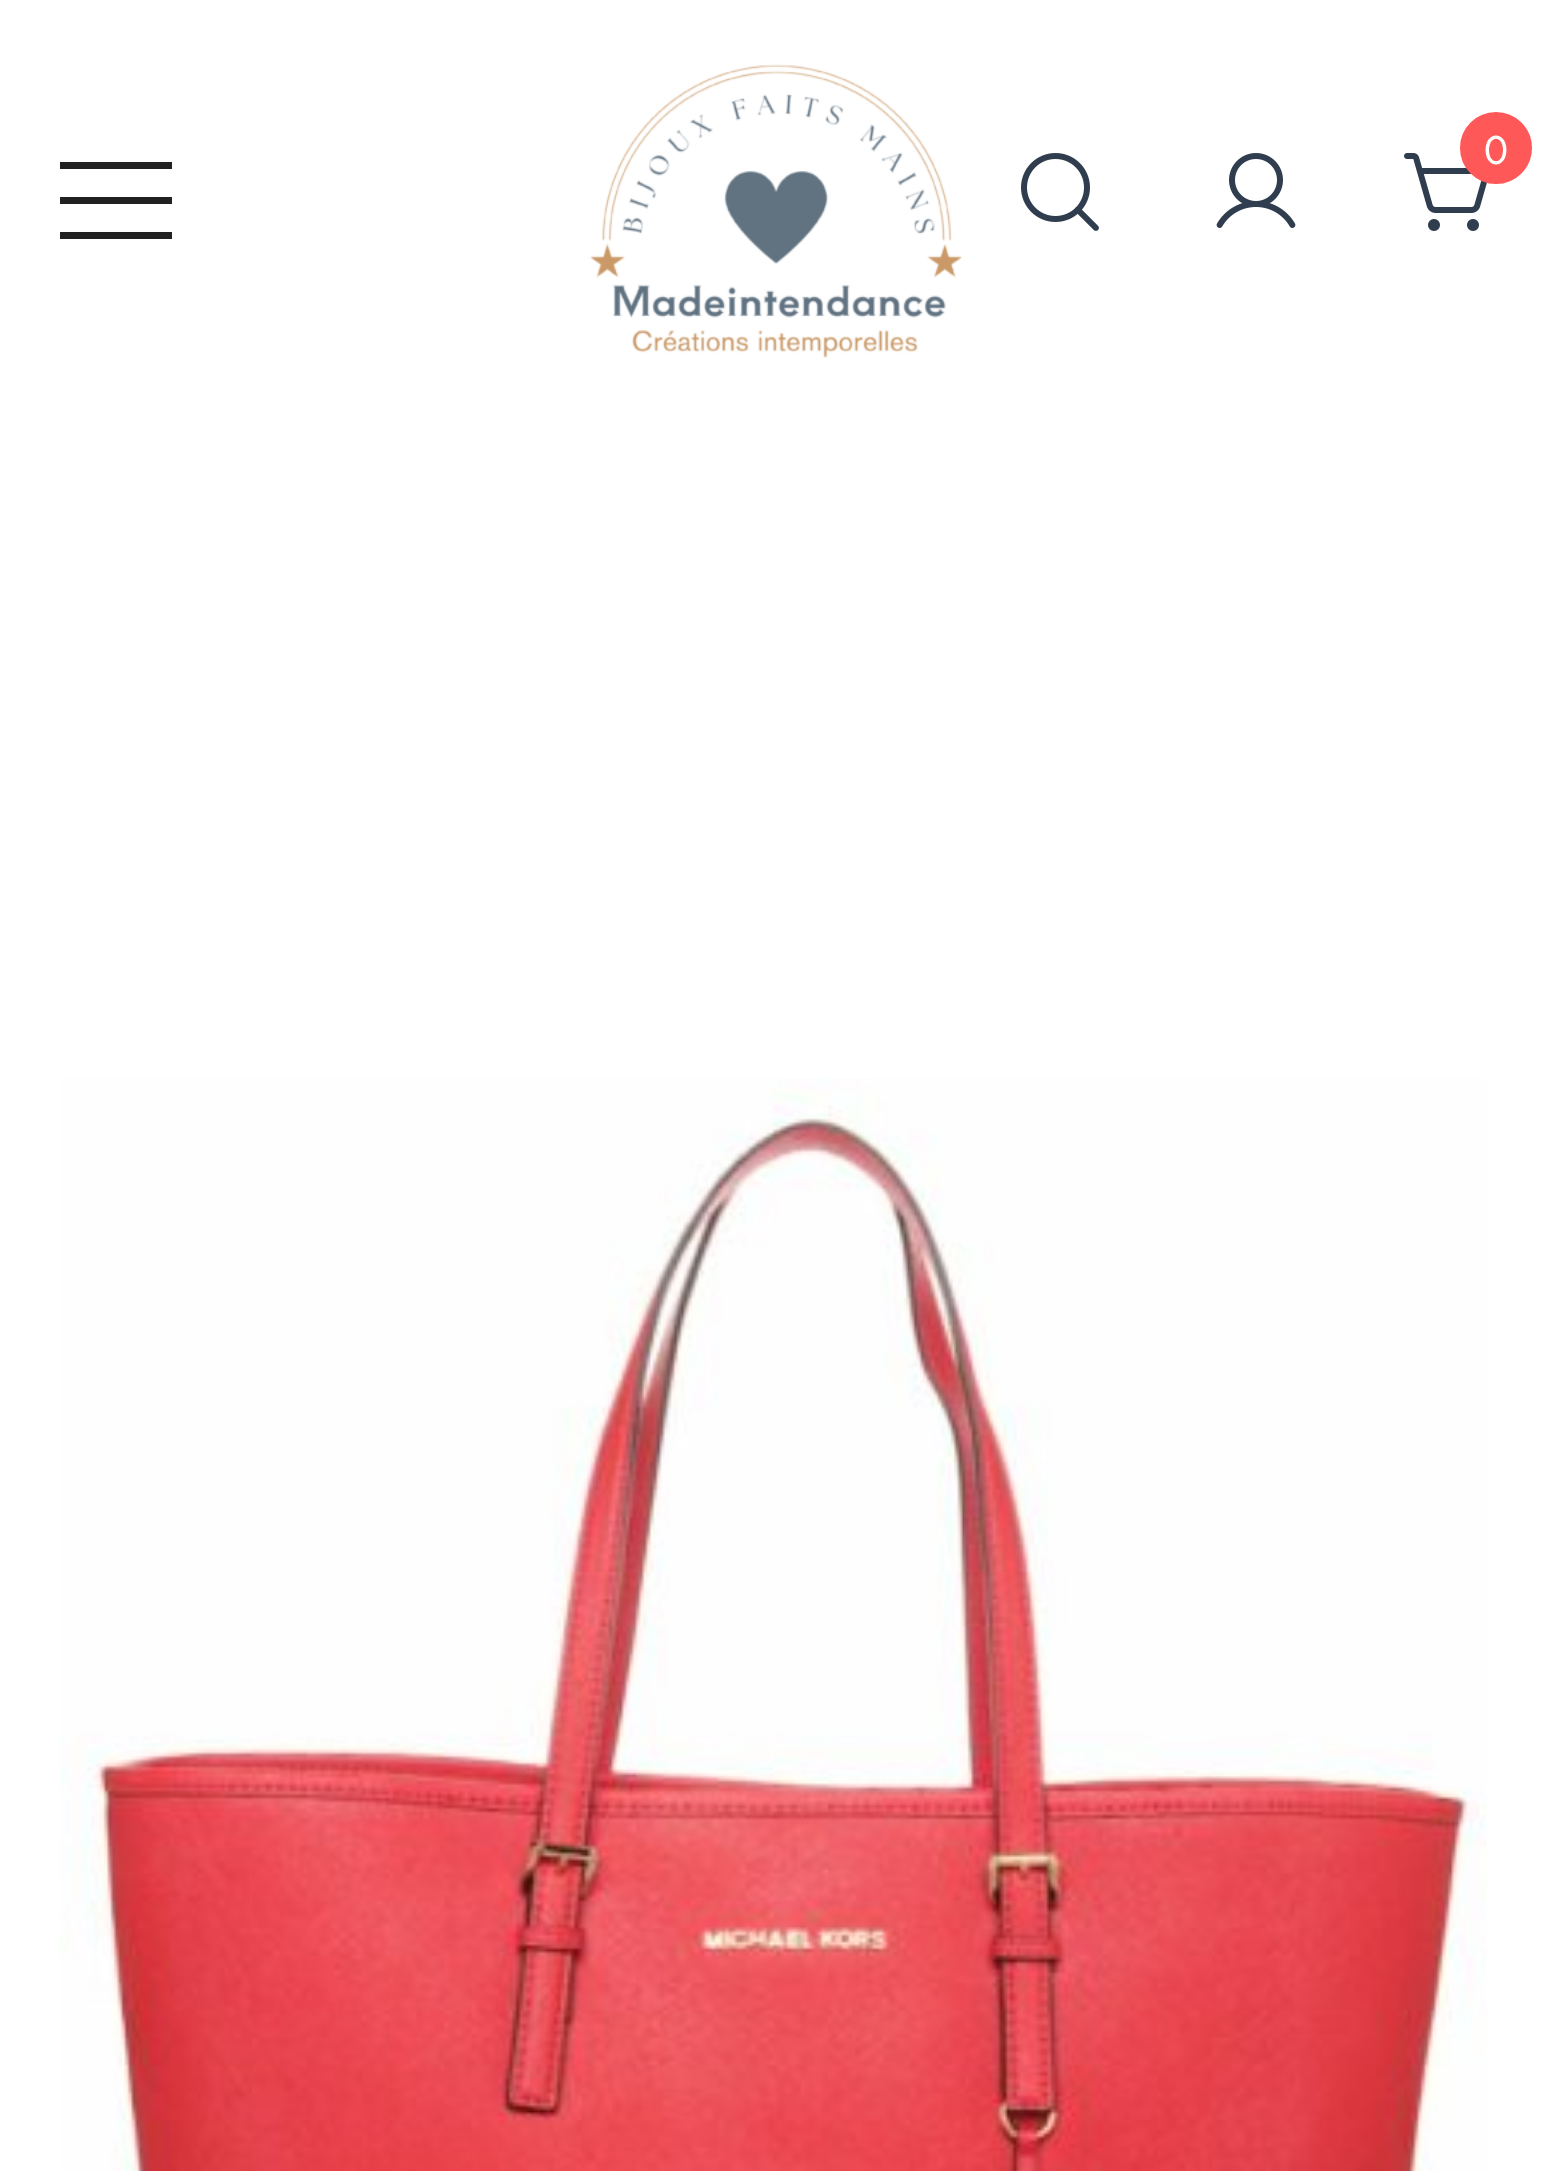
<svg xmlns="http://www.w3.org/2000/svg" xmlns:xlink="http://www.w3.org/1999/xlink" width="1560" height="2171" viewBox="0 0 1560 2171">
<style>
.cls-1{font:40px Jost;fill:#ffffff}
</style>
<rect width="100%" height="100%" fill="#ffffff"/>
<image xlink:href="image0.png" x="590" y="64" width="372" height="294"/>
<image xlink:href="image1.png" x="1404" y="153" width="84" height="78"/>
<circle fill="#ff5858" stroke="#ff5858" stroke-width="4" cx="1496" cy="148" r="34"/>
<image xlink:href="image2.png" x="1216" y="153" width="80" height="75"/>
<image xlink:href="image3.png" x="1021" y="153" width="78" height="78"/>
<rect fill="#212121" x="60" y="162" width="112" height="7"/>
<rect fill="#212121" x="60" y="197" width="112" height="7"/>
<rect fill="#212121" x="60" y="232" width="112" height="7"/>
<image xlink:href="image4.png" x="60" y="1078" width="1427" height="1093"/>
<text class="cls-1" x="1484" y="164">0</text>
</svg>
